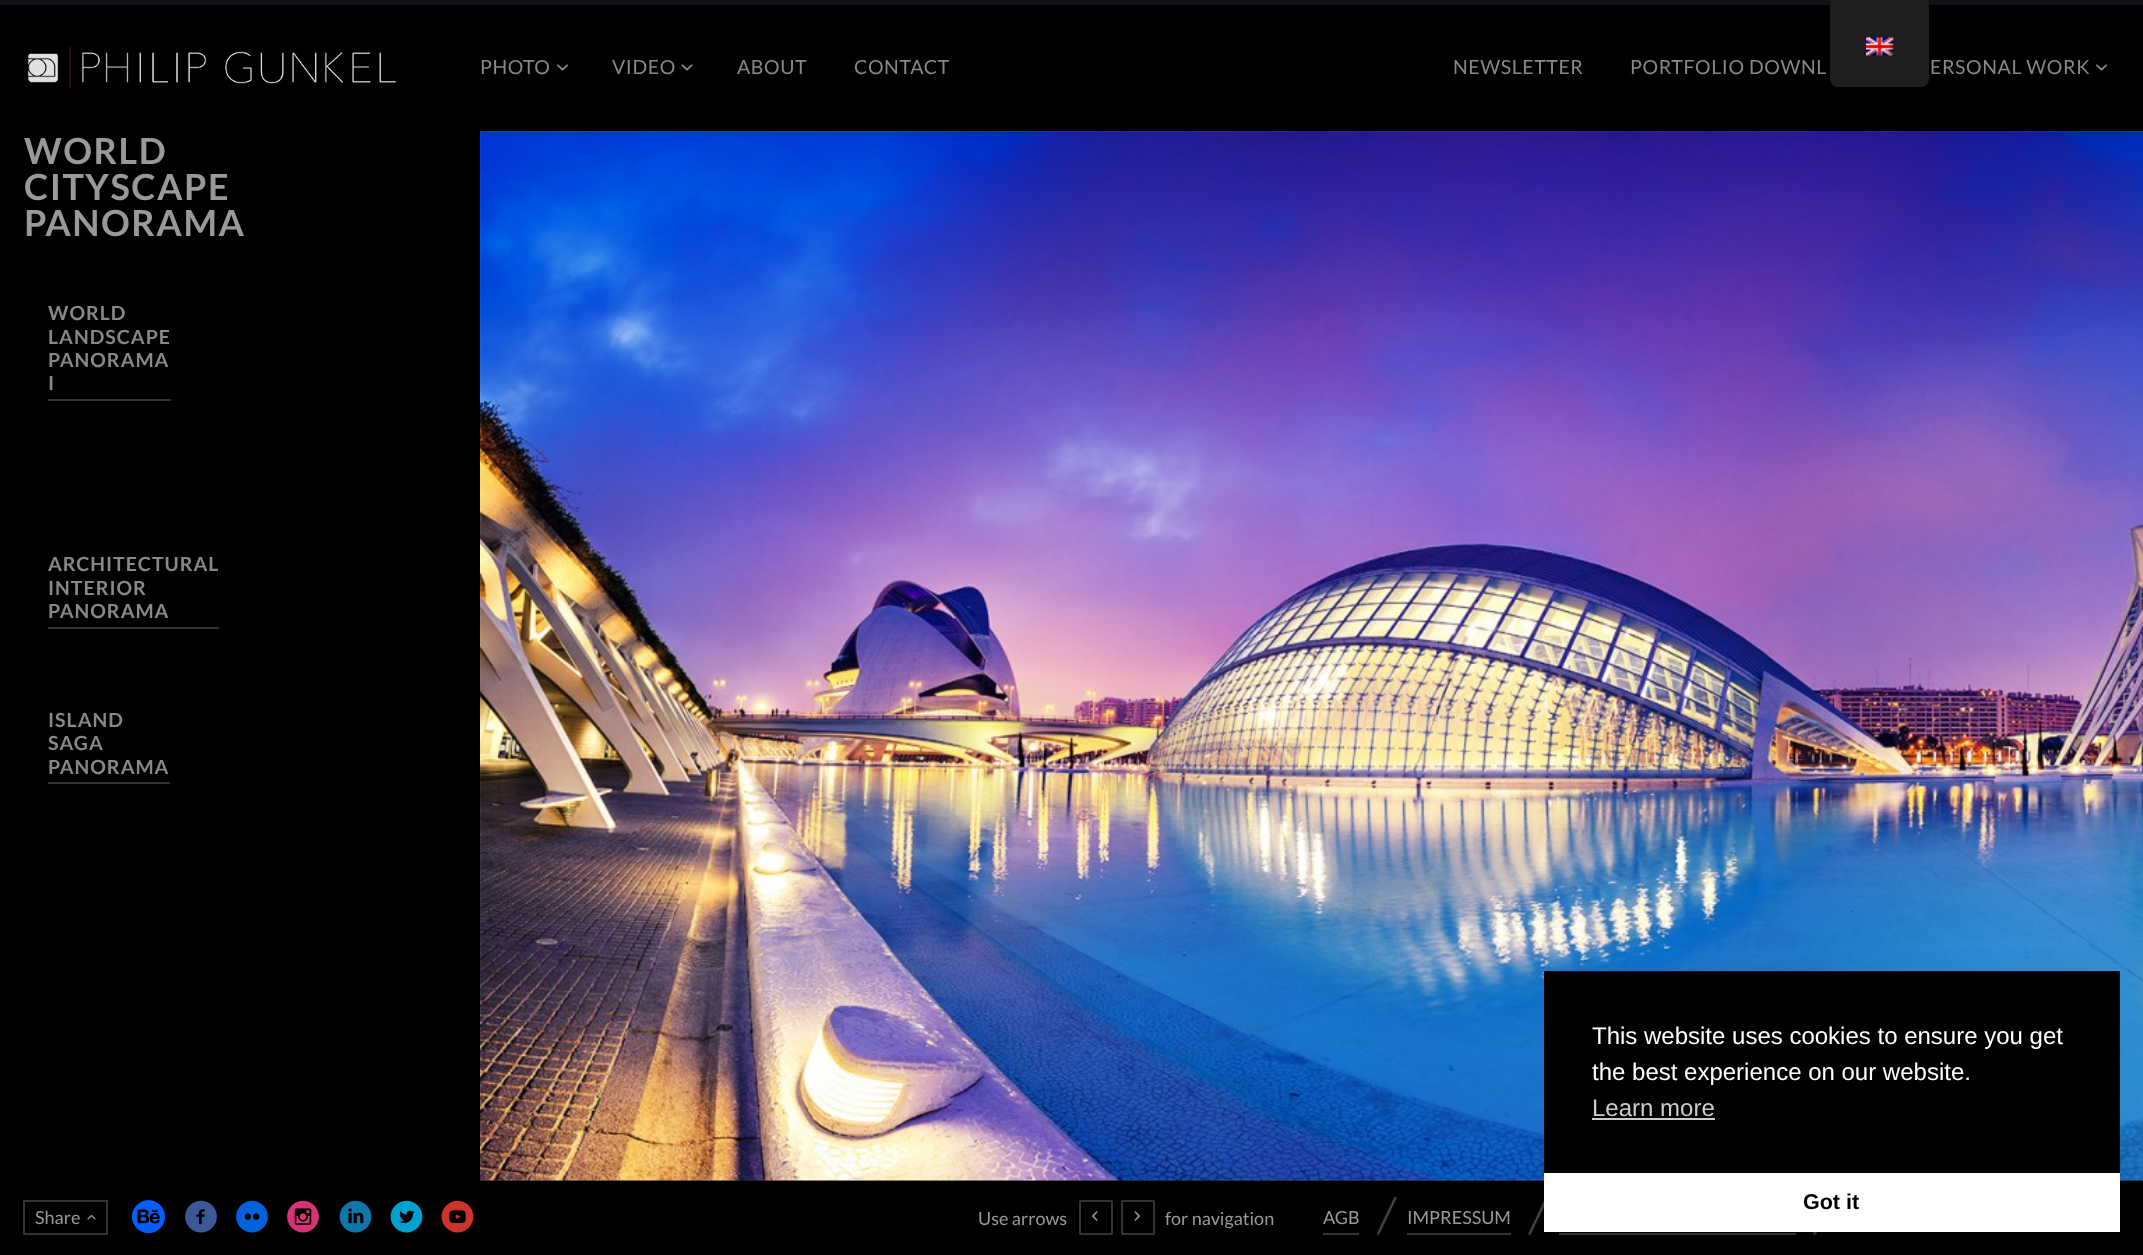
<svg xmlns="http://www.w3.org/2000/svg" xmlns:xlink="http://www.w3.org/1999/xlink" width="2143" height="1255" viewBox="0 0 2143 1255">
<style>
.cls-1{font:19.5px Lato;letter-spacing:0.6px;fill:#888888}
.cls-2{font:bold 36px Lato;letter-spacing:1.5px;fill:#999999}
.cls-3{font:bold 19.5px Lato;letter-spacing:1px;fill:#888888}
.cls-4{font:24px Liberation Sans;fill:#ffffff}
.cls-5{font:24px Liberation Sans;fill:#cccccc}
.cls-6{font:bold 21.5px Liberation Sans;fill:#000000}
.cls-7{font:18px Lato;fill:#999999}
</style>
<rect width="100%" height="100%" fill="#000000"/>
<rect fill="#111116" x="0" y="0" width="2143" height="5"/>
<path fill="#1e1e1e" d="M1830 0H1929V79C1929 83.5 1925.5 87 1921 87H1838C1833.5 87 1830 83.5 1830 79Z"/>
<image xlink:href="image0.png" x="1866" y="37" width="28" height="19"/>
<image xlink:href="image1.png" x="27" y="46" width="369" height="43"/>
<image xlink:href="image2.png" x="557" y="64" width="11" height="7"/>
<image xlink:href="image3.png" x="681" y="64" width="12" height="7"/>
<image xlink:href="image2.png" x="2096" y="64" width="11" height="7"/>
<rect fill="#333333" x="48" y="399" width="123" height="2"/>
<rect fill="#333333" x="48" y="627" width="171" height="2"/>
<rect fill="#333333" x="48" y="782" width="122" height="2"/>
<rect fill="#111111" x="480" y="1180" width="1663" height="1"/>
<image xlink:href="image4.png" x="480" y="131" width="1663" height="1050"/>
<rect fill="#000000" x="1544" y="971" width="576" height="202"/>
<rect fill="#cccccc" x="1592" y="1118" width="123" height="2"/>
<rect fill="#ffffff" x="1544" y="1173" width="576" height="59"/>
<rect fill="none" stroke="#333333" stroke-width="2" x="24" y="1201" width="83" height="33"/>
<image xlink:href="image5.png" x="87" y="1214" width="9" height="6"/>
<image xlink:href="image6.png" x="132" y="1200" width="33" height="34"/>
<image xlink:href="image7.png" x="185" y="1200" width="32" height="33"/>
<image xlink:href="image8.png" x="236" y="1200" width="32" height="33"/>
<image xlink:href="image9.png" x="287" y="1200" width="32" height="33"/>
<image xlink:href="image10.png" x="339" y="1200" width="33" height="33"/>
<image xlink:href="image11.png" x="390" y="1200" width="33" height="33"/>
<image xlink:href="image12.png" x="441" y="1200" width="33" height="33"/>
<rect fill="none" stroke="#333333" stroke-width="2" x="1080" y="1201" width="32" height="33" rx="0.5"/>
<image xlink:href="image13.png" x="1092" y="1211" width="6" height="10"/>
<rect fill="none" stroke="#333333" stroke-width="2" x="1122" y="1201" width="32" height="33" rx="0.5"/>
<image xlink:href="image14.png" x="1134" y="1211" width="6" height="10"/>
<rect fill="#333333" x="1323" y="1233" width="36" height="2"/>
<image xlink:href="image15.png" x="1377" y="1196" width="20" height="40"/>
<rect fill="#333333" x="1407" y="1233" width="104" height="2"/>
<image xlink:href="image16.png" x="1528" y="1200" width="16" height="36"/>
<rect fill="#333333" x="1559" y="1233" width="237" height="2"/>
<image xlink:href="image17.png" x="1813" y="1232" width="4" height="4"/>
<text class="cls-1" x="480" y="74">PHOTO</text>
<text class="cls-1" x="612" y="74">VIDEO</text>
<text class="cls-1" x="737" y="74">ABOUT</text>
<text class="cls-1" x="854" y="74">CONTACT</text>
<text class="cls-1" x="1453" y="74">NEWSLETTER</text>
<text class="cls-1" x="1630" y="74">PORTFOLIO DOWNL</text>
<text class="cls-1" x="1930" y="74">ERSONAL WORK</text>
<text class="cls-2"><tspan x="24" y="164">WORLD</tspan><tspan x="24" y="200">CITYSCAPE</tspan><tspan x="24" y="236">PANORAMA</tspan></text>
<text class="cls-3"><tspan x="48" y="320">WORLD</tspan><tspan x="48" y="344">LANDSCAPE</tspan><tspan x="48" y="367">PANORAMA</tspan><tspan x="48" y="390">I</tspan></text>
<text class="cls-3"><tspan x="48" y="571">ARCHITECTURAL</tspan><tspan x="48" y="595">INTERIOR</tspan><tspan x="48" y="618">PANORAMA</tspan></text>
<text class="cls-3"><tspan x="48" y="727">ISLAND</tspan><tspan x="48" y="750">SAGA</tspan><tspan x="48" y="774">PANORAMA</tspan></text>
<text class="cls-4"><tspan x="1592" y="1044">This website uses cookies to ensure you get</tspan><tspan x="1592" y="1080">the best experience on our website.</tspan></text>
<text class="cls-5" x="1592" y="1116">Learn more</text>
<text class="cls-6" x="1803" y="1209">Got it</text>
<text class="cls-7" x="35" y="1224">Share</text>
<text class="cls-7" x="978" y="1225">Use arrows</text>
<text class="cls-7" x="1165" y="1225">for navigation</text>
<text class="cls-7" x="1323" y="1224">AGB</text>
<text class="cls-7" x="1407" y="1224">IMPRESSUM</text>
</svg>
